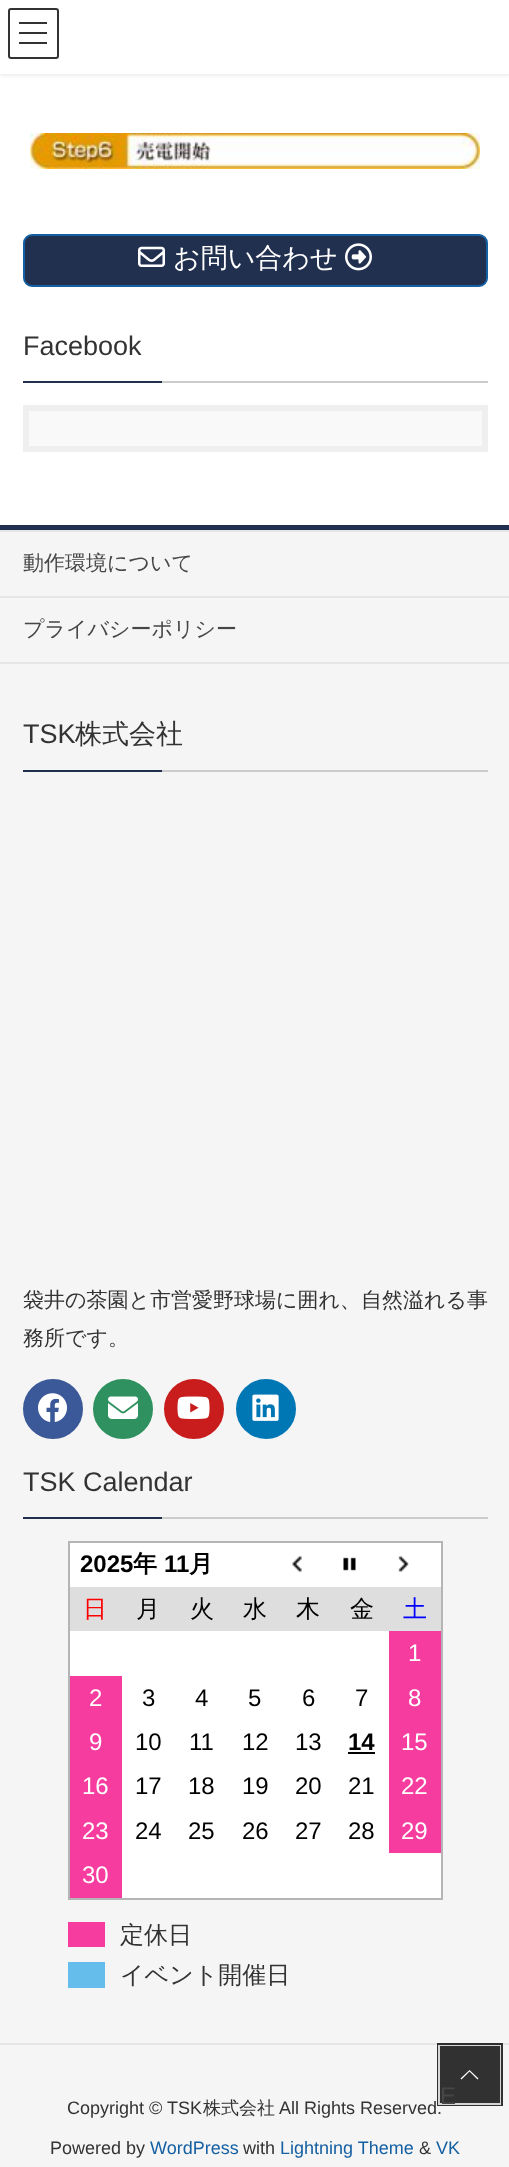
<svg xmlns="http://www.w3.org/2000/svg" xmlns:xlink="http://www.w3.org/1999/xlink" width="509" height="2167" viewBox="0 0 509 2167">
<style>
.cls-1{font:500 27px WenQuanYi Zen Hei;fill:#ffffff}
.cls-2{font:27px Liberation Sans;fill:#333333}
.cls-3{font:500 21px WenQuanYi Zen Hei;fill:#464646}
.cls-4{font:500 27px WenQuanYi Zen Hei;fill:#333333}
.cls-5{font:500 21px WenQuanYi Zen Hei;fill:#333333}
.cls-6{font:bold 24px Liberation Sans;fill:#000000}
.cls-7{font:bold 24px WenQuanYi Zen Hei;fill:#000000}
.cls-8{font:500 24px WenQuanYi Zen Hei;fill:#ff0000}
.cls-9{font:500 24px WenQuanYi Zen Hei;fill:#000000}
.cls-10{font:500 24px WenQuanYi Zen Hei;fill:#0000ff}
.cls-11{font:24px Liberation Sans;fill:#ffffff}
.cls-12{font:24px Liberation Sans;fill:#000000}
.cls-13{font:500 24px WenQuanYi Zen Hei;fill:#333333}
.cls-14{font:18px Liberation Sans;fill:#333333}
.cls-15{font:500 18px WenQuanYi Zen Hei;fill:#333333}
.cls-16{font:18px Liberation Sans;fill:#1560a3}
.cls-17{font:24px Liberation Sans;fill:#464646}
</style>
<rect width="100%" height="100%" fill="#ffffff"/>
<rect fill="#000000" fill-opacity="0.1" filter="blur(2px)" x="0" y="2" width="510" height="73"/>
<rect fill="#ffffff" x="0" y="0" width="509" height="74"/>
<rect fill="#333333" x="19" y="22" width="28" height="2"/>
<rect fill="#333333" x="19" y="32" width="28" height="2"/>
<rect fill="#333333" x="19" y="42" width="28" height="2"/>
<rect fill="none" stroke="#333333" stroke-width="2" x="9" y="9" width="49" height="49" rx="2"/>
<image xlink:href="image0.png" x="30" y="133" width="450" height="36"/>
<rect fill="#22304f" stroke="#1560a3" stroke-width="2" x="24" y="235" width="463" height="51" rx="8"/>
<image xlink:href="image1.png" x="138" y="246" width="27" height="21"/>
<image xlink:href="image2.png" x="345" y="243" width="27" height="28"/>
<rect fill="#cccccc" x="162" y="381" width="326" height="2"/>
<rect fill="#22304f" x="23" y="381" width="139" height="2"/>
<rect fill="#f9f9f9" stroke="#efefef" stroke-width="6" x="26" y="408" width="459" height="41"/>
<rect fill="#f5f5f5" x="0" y="532" width="509" height="1635"/>
<rect fill="#22304f" x="0" y="525" width="509" height="5"/>
<rect fill="#e5e5e5" x="0" y="530" width="509" height="2"/>
<rect fill="#e5e5e5" x="0" y="662" width="509" height="2"/>
<rect fill="#e5e5e5" x="0" y="596" width="509" height="2"/>
<rect fill="#cccccc" x="162" y="770" width="326" height="2"/>
<rect fill="#22304f" x="23" y="770" width="139" height="2"/>
<circle fill="#3b5998" stroke="#3b5998" stroke-width="2" cx="53" cy="1409" r="29"/>
<image xlink:href="image3.png" x="38" y="1393" width="29" height="29"/>
<circle fill="#2f915f" stroke="#2f915f" stroke-width="2" cx="123" cy="1409" r="29"/>
<image xlink:href="image4.png" x="108" y="1396" width="30" height="23"/>
<circle fill="#c81d1c" stroke="#c81d1c" stroke-width="2" cx="194" cy="1409" r="29"/>
<image xlink:href="image5.png" x="177" y="1396" width="33" height="23"/>
<circle fill="#0077b5" stroke="#0077b5" stroke-width="2" cx="266" cy="1409" r="29"/>
<image xlink:href="image6.png" x="252" y="1394" width="27" height="27"/>
<rect fill="#cccccc" x="162" y="1517" width="326" height="2"/>
<rect fill="#22304f" x="23" y="1517" width="139" height="2"/>
<rect fill="#ffffff" x="70" y="1543" width="371" height="355"/>
<rect fill="#b5b5b6" x="68" y="1541" width="375" height="2"/>
<rect fill="#b5b5b6" x="441" y="1541" width="2" height="358"/>
<rect fill="#b5b5b6" x="68" y="1898" width="375" height="2"/>
<rect fill="#b5b5b6" x="68" y="1541" width="2" height="358"/>
<image xlink:href="image7.png" x="292" y="1556" width="10" height="16"/>
<image xlink:href="image8.png" x="343" y="1557" width="13" height="14"/>
<image xlink:href="image9.png" x="398" y="1556" width="11" height="16"/>
<rect fill="#dedede" x="70" y="1587" width="371" height="44"/>
<rect fill="#f63c9f" x="389" y="1631" width="52" height="222"/>
<rect fill="#f63c9f" x="70" y="1676" width="52" height="222"/>
<rect fill="#000000" x="348" y="1752" width="27" height="2"/>
<rect fill="#f63c9f" x="68" y="1922" width="37" height="25"/>
<rect fill="#64bdeb" x="68" y="1962" width="37" height="26"/>
<rect fill="#e5e5e5" x="0" y="2043" width="509" height="2"/>
<text class="cls-1" x="173" y="267">お問い合わせ</text>
<text class="cls-2" x="23" y="355">Facebook</text>
<text class="cls-3" x="23" y="570">動作環境について</text>
<text class="cls-3" x="23" y="636">プライバシーポリシー</text>
<text class="cls-2" x="23" y="743">TSK</text>
<text class="cls-4" x="75" y="743">株式会社</text>
<text class="cls-5"><tspan x="23" y="1307">袋井の茶園と市営愛野球場に囲れ、自然溢れる事</tspan><tspan x="23" y="1345">務所です。</tspan></text>
<text class="cls-2" x="23" y="1491">TSK Calendar</text>
<text class="cls-6" x="80" y="1572">2025</text>
<text class="cls-7" x="133" y="1572">年</text>
<text class="cls-6" x="164" y="1572">11</text>
<text class="cls-7" x="189" y="1572">月</text>
<text class="cls-8" x="83" y="1617">日</text>
<text class="cls-9" x="136" y="1617">月</text>
<text class="cls-9" x="190" y="1617">火</text>
<text class="cls-9" x="243" y="1617">水</text>
<text class="cls-9" x="296" y="1617">木</text>
<text class="cls-9" x="350" y="1617">金</text>
<text class="cls-10" x="403" y="1617">土</text>
<text class="cls-11" x="408" y="1661">1</text>
<text class="cls-11" x="89" y="1706">2</text>
<text class="cls-12" x="142" y="1706">3</text>
<text class="cls-12" x="195" y="1706">4</text>
<text class="cls-12" x="248" y="1706">5</text>
<text class="cls-12" x="302" y="1706">6</text>
<text class="cls-12" x="355" y="1706">7</text>
<text class="cls-11" x="408" y="1706">8</text>
<text class="cls-11" x="89" y="1750">9</text>
<text class="cls-12" x="135" y="1750">10</text>
<text class="cls-12" x="189" y="1750">11</text>
<text class="cls-12" x="242" y="1750">12</text>
<text class="cls-12" x="295" y="1750">13</text>
<text class="cls-6" x="348" y="1750">14</text>
<text class="cls-11" x="401" y="1750">15</text>
<text class="cls-11" x="82" y="1794">16</text>
<text class="cls-12" x="135" y="1794">17</text>
<text class="cls-12" x="188" y="1794">18</text>
<text class="cls-12" x="242" y="1794">19</text>
<text class="cls-12" x="295" y="1794">20</text>
<text class="cls-12" x="348" y="1794">21</text>
<text class="cls-11" x="401" y="1794">22</text>
<text class="cls-11" x="82" y="1839">23</text>
<text class="cls-12" x="135" y="1839">24</text>
<text class="cls-12" x="188" y="1839">25</text>
<text class="cls-12" x="242" y="1839">26</text>
<text class="cls-12" x="295" y="1839">27</text>
<text class="cls-12" x="348" y="1839">28</text>
<text class="cls-11" x="401" y="1839">29</text>
<text class="cls-11" x="82" y="1883">30</text>
<text class="cls-13"><tspan x="120" y="1943">定休日</tspan><tspan x="120" y="1983">イベント開催日</tspan></text>
<text class="cls-14" x="67" y="2114">Copyright © TSK</text>
<text class="cls-15" x="203" y="2114">株式会社</text>
<text class="cls-14" x="279" y="2114">All Rights Reserved.</text>
<text class="cls-14" x="50" y="2154">Powered by</text>
<text class="cls-16" x="150" y="2154">WordPress</text>
<text class="cls-14" x="243" y="2154">with</text>
<text class="cls-16" x="280" y="2154">Lightning Theme</text>
<text class="cls-14" x="419" y="2154">&amp;</text>
<text class="cls-16" x="436" y="2154">VK</text>
<rect fill="none" stroke="#000000" stroke-opacity="0.8" stroke-width="3" x="438.5" y="2044.5" width="63" height="60"/>
<rect fill="none" stroke="#ffffff" stroke-opacity="0.8" stroke-width="2" x="439" y="2046" width="61" height="58"/>
<rect fill="#000000" fill-opacity="0.8" x="440" y="2046" width="60" height="57"/>
<path fill="#ffffff" d="M478.5 2078.5L477.5 2079.5L469.5 2071.5L461.5 2079.5L460.5 2078.5L469.5 2070Z"/>
<text class="cls-17" x="440" y="2104">E</text>
</svg>
